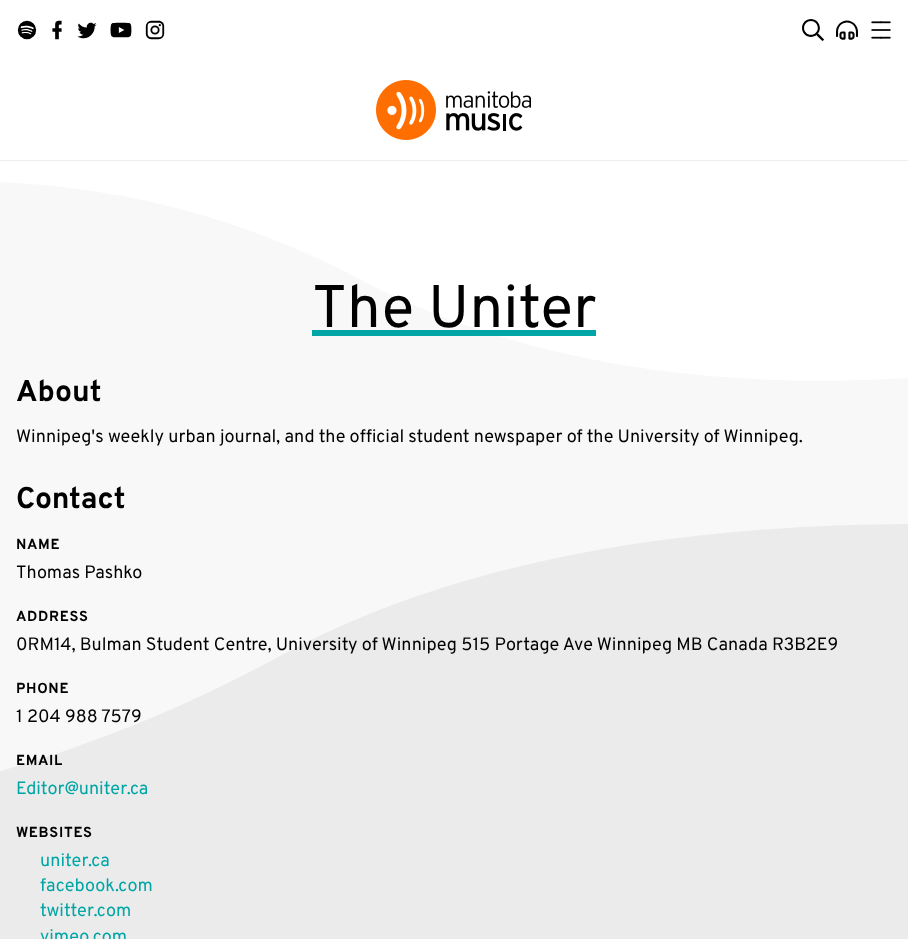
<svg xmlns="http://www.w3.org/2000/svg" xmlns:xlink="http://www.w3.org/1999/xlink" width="908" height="939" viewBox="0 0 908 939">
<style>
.cls-1{font:60px Overpass;fill:#000000}
.cls-2{font:bold 30px Overpass;fill:#000000}
.cls-3{font:18px Overpass;fill:#000000}
.cls-4{font:bold 14.5px Overpass;letter-spacing:0.75px;fill:#000000}
.cls-5{font:18px Overpass;fill:#00a5a5}
</style>
<rect width="100%" height="100%" fill="#ffffff"/>
<rect fill="#eeeeee" x="0" y="160" width="908" height="1"/>
<image xlink:href="image0.png" x="17" y="20" width="20" height="20"/>
<image xlink:href="image1.png" x="52" y="20" width="10" height="20"/>
<image xlink:href="image2.png" x="77" y="22" width="20" height="17"/>
<image xlink:href="image3.png" x="110" y="22" width="22" height="16"/>
<image xlink:href="image4.png" x="145" y="20" width="20" height="20"/>
<image xlink:href="image5.png" x="802" y="19" width="22" height="22"/>
<image xlink:href="image6.png" x="836" y="20" width="22" height="20"/>
<image xlink:href="image7.png" x="871" y="21" width="20" height="18"/>
<image xlink:href="image8.png" x="376" y="80" width="155" height="60"/>
<path fill="#f8f8f8" d="M-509 301C-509 304-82 47 357 278C795 509 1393 278 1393 278V696L-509 832Z"/>
<path fill="#ebebeb" d="M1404 572C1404 572 712 421 282 655C-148 889-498 805-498 805V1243L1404 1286Z"/>
<rect fill="#00a5a5" x="312" y="330" width="284" height="6"/>
<text class="cls-1" x="312" y="327">The Uniter</text>
<text class="cls-2" x="16" y="401">About</text>
<text class="cls-3" x="16" y="442">Winnipeg's weekly urban journal, and the official student newspaper of the University of Winnipeg.</text>
<text class="cls-2" x="16" y="508">Contact</text>
<text class="cls-4" x="16" y="549">NAME</text>
<text class="cls-3" x="16" y="578">Thomas Pashko</text>
<text class="cls-4" x="16" y="621">ADDRESS</text>
<text class="cls-3" x="16" y="650">0RM14, Bulman Student Centre, University of Winnipeg 515 Portage Ave Winnipeg MB Canada R3B2E9</text>
<text class="cls-4" x="16" y="693">PHONE</text>
<text class="cls-3" x="16" y="722">1 204 988 7579</text>
<text class="cls-4" x="16" y="765">EMAIL</text>
<text class="cls-5" x="16" y="794">Editor@uniter.ca</text>
<text class="cls-4" x="16" y="837">WEBSITES</text>
<text class="cls-5"><tspan x="40" y="866">uniter.ca</tspan><tspan x="40" y="891">facebook.com</tspan><tspan x="40" y="916">twitter.com</tspan><tspan x="40" y="942">vimeo.com</tspan></text>
</svg>
